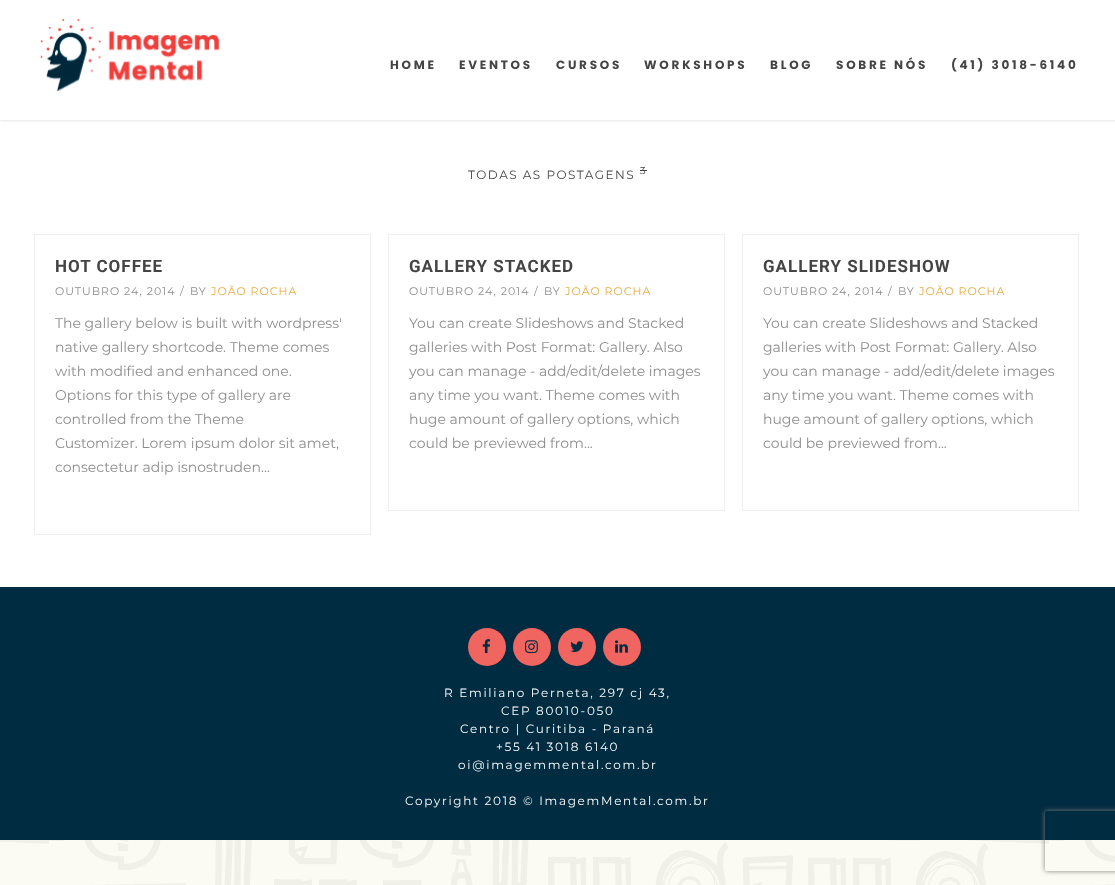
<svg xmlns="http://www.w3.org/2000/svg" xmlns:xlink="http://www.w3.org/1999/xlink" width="1115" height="885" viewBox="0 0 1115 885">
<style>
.cls-1{font:bold 12px Poppins;letter-spacing:2.75px;fill:#444444}
.cls-2{font:100 12px Montserrat;letter-spacing:1.5px;fill:#444444}
.cls-3{font:100 10px Montserrat;letter-spacing:1.5px;fill:#444444}
.cls-4{font:bold 17px Roboto;letter-spacing:1px;fill:#444444}
.cls-5{font:100 11px Montserrat;letter-spacing:1px;fill:#8d8d8d}
.cls-6{font:100 11px Montserrat;letter-spacing:1px;fill:#e5ae47}
.cls-7{font:100 14px Montserrat;fill:#8d8d8d}
.cls-8{font:100 12px Montserrat;letter-spacing:1.7px;fill:#ffffff}
</style>
<defs>
<clipPath id="clip1"><path d="M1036 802H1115V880H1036ZM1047 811H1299C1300 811 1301 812 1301 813V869C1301 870 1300 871 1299 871H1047C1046 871 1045 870 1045 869V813C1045 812 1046 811 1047 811Z" clip-rule="evenodd"/></clipPath>
</defs>
<rect width="100%" height="100%" fill="#ffffff"/>
<image xlink:href="image0.png" x="0" y="840" width="1115" height="45"/>
<rect fill="#000000" fill-opacity="0.1" filter="blur(1px)" x="0" y="1" width="1115" height="120"/>
<rect fill="#ffffff" x="0" y="0" width="1115" height="120"/>
<image xlink:href="image1.png" x="40" y="19" width="180" height="72"/>
<rect fill="#444444" x="640" y="170" width="7" height="1"/>
<rect fill="none" stroke="#efefef" x="34.5" y="234.5" width="336" height="300"/>
<rect fill="none" stroke="#efefef" x="388.5" y="234.5" width="336" height="276"/>
<rect fill="none" stroke="#efefef" x="742.5" y="234.5" width="336" height="276"/>
<rect fill="#002c41" x="0" y="587" width="1115" height="253"/>
<circle fill="#f16561" cx="487" cy="647" r="19"/>
<image xlink:href="image2.png" x="482" y="639" width="9" height="15"/>
<circle fill="#f16561" cx="532" cy="647" r="19"/>
<image xlink:href="image3.png" x="525" y="640" width="13" height="14"/>
<circle fill="#f16561" cx="577" cy="647" r="19"/>
<image xlink:href="image4.png" x="570" y="641" width="14" height="11"/>
<circle fill="#f16561" cx="622" cy="647" r="19"/>
<image xlink:href="image5.png" x="615" y="640" width="13" height="13"/>
<g clip-path="url(#clip1)">
<rect fill="#808080" filter="blur(2.5px)" x="1045" y="811" width="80" height="60" rx="2"/>
</g>
<text class="cls-1" x="390" y="69">HOME</text>
<text class="cls-1" x="459" y="69">EVENTOS</text>
<text class="cls-1" x="556" y="69">CURSOS</text>
<text class="cls-1" x="644" y="69">WORKSHOPS</text>
<text class="cls-1" x="770" y="69">BLOG</text>
<text class="cls-1" x="836" y="69">SOBRE NÓS</text>
<text class="cls-1" x="951" y="69">(41) 3018-6140</text>
<text class="cls-2" x="468" y="179">TODAS AS POSTAGENS</text>
<text class="cls-3" x="640" y="174">3</text>
<text class="cls-4" x="55" y="272">HOT COFFEE</text>
<text class="cls-5" x="55" y="295">OUTUBRO 24, 2014</text>
<text class="cls-5" x="180" y="295">/</text>
<text class="cls-5" x="190" y="295">BY</text>
<text class="cls-6" x="211" y="295">JOÃO ROCHA</text>
<text class="cls-7"><tspan x="55" y="328">The gallery below is built with wordpress'</tspan><tspan x="55" y="352">native gallery shortcode. Theme comes</tspan><tspan x="55" y="376">with modified and enhanced one.</tspan><tspan x="55" y="400">Options for this type of gallery are</tspan><tspan x="55" y="424">controlled from the Theme</tspan><tspan x="55" y="448">Customizer. Lorem ipsum dolor sit amet,</tspan><tspan x="55" y="472">consectetur adip isnostruden...</tspan></text>
<text class="cls-4" x="409" y="272">GALLERY STACKED</text>
<text class="cls-5" x="409" y="295">OUTUBRO 24, 2014</text>
<text class="cls-5" x="534" y="295">/</text>
<text class="cls-5" x="544" y="295">BY</text>
<text class="cls-6" x="565" y="295">JOÃO ROCHA</text>
<text class="cls-7"><tspan x="409" y="328">You can create Slideshows and Stacked</tspan><tspan x="409" y="352">galleries with Post Format: Gallery. Also</tspan><tspan x="409" y="376">you can manage - add/edit/delete images</tspan><tspan x="409" y="400">any time you want. Theme comes with</tspan><tspan x="409" y="424">huge amount of gallery options, which</tspan><tspan x="409" y="448">could be previewed from...</tspan></text>
<text class="cls-4" x="763" y="272">GALLERY SLIDESHOW</text>
<text class="cls-5" x="763" y="295">OUTUBRO 24, 2014</text>
<text class="cls-5" x="888" y="295">/</text>
<text class="cls-5" x="898" y="295">BY</text>
<text class="cls-6" x="919" y="295">JOÃO ROCHA</text>
<text class="cls-7"><tspan x="763" y="328">You can create Slideshows and Stacked</tspan><tspan x="763" y="352">galleries with Post Format: Gallery. Also</tspan><tspan x="763" y="376">you can manage - add/edit/delete images</tspan><tspan x="763" y="400">any time you want. Theme comes with</tspan><tspan x="763" y="424">huge amount of gallery options, which</tspan><tspan x="763" y="448">could be previewed from...</tspan></text>
<text class="cls-8" x="444" y="697">R Emiliano Perneta, 297 cj 43,</text>
<text class="cls-8" x="501" y="715">CEP 80010-050</text>
<text class="cls-8" x="460" y="733">Centro | Curitiba - Paraná</text>
<text class="cls-8" x="496" y="751">+55 41 3018 6140</text>
<text class="cls-8" x="458" y="769">oi@imagemmental.com.br</text>
<text class="cls-8" x="405" y="805">Copyright 2018 © ImagemMental.com.br</text>
</svg>
